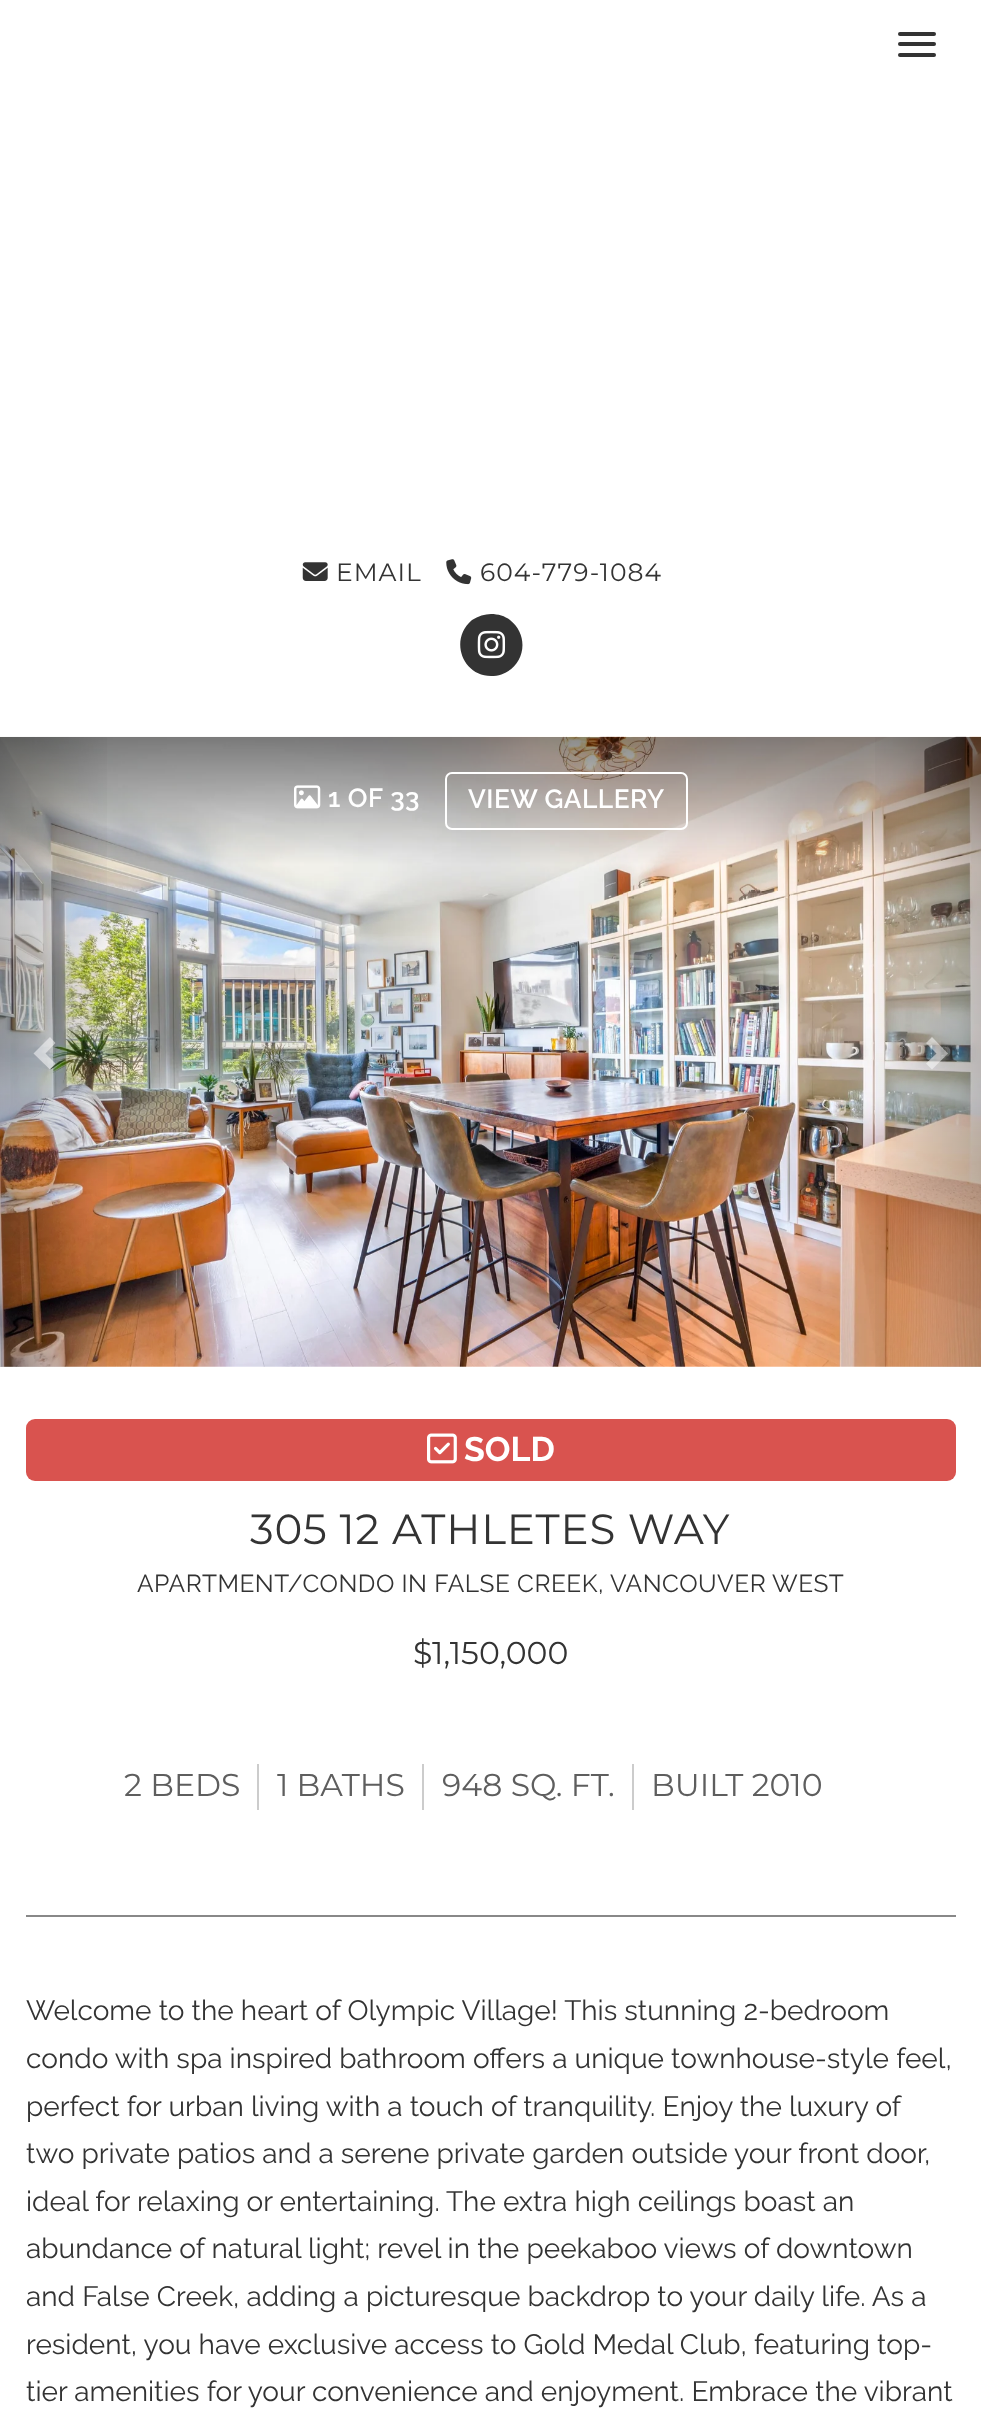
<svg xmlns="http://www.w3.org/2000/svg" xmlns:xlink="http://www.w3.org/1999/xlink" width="981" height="2411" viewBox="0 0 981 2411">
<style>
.cls-1{font:25px Montserrat;letter-spacing:1px;fill:#333333}
.cls-2{font:600 26.25px Raleway;letter-spacing:0.5px;fill:#ffffff}
.cls-3{font:bold 34px Raleway;fill:#ffffff}
.cls-4{font:42px Montserrat;letter-spacing:0.8px;fill:#333333}
.cls-5{font:24.5px Raleway;letter-spacing:0.5px;fill:#333333}
.cls-6{font:31.5px Montserrat;fill:#333333}
.cls-7{font:31.5px Montserrat;fill:#5e5e5e}
.cls-8{font:28px Raleway;fill:#333333}
</style>
<defs>
<linearGradient id="g1" gradientUnits="userSpaceOnUse" x1="0" y1="1052" x2="117" y2="1052"><stop offset="0" stop-color="#000000" stop-opacity="0.25"/><stop offset="1" stop-color="#000000" stop-opacity="0"/></linearGradient>
<linearGradient id="g2" gradientUnits="userSpaceOnUse" x1="865" y1="1052" x2="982" y2="1052"><stop offset="0" stop-color="#000000" stop-opacity="0"/><stop offset="1" stop-color="#000000" stop-opacity="0.25"/></linearGradient>
</defs>
<rect width="100%" height="100%" fill="#ffffff"/>
<rect fill="#333333" x="898" y="32" width="38" height="4" rx="2"/>
<rect fill="#333333" x="898" y="42" width="38" height="4" rx="2"/>
<rect fill="#333333" x="898" y="53" width="38" height="4" rx="2"/>
<image xlink:href="image0.png" x="302" y="562" width="26" height="19"/>
<image xlink:href="image1.png" x="446" y="559" width="26" height="26"/>
<path fill="#333333" d="M491 676C521 676 534 639 510 620C505 616 498 614 491 614C485 614 478 616 472 620C449 639 462 676 491 676Z"/>
<image xlink:href="image2.png" x="477" y="630" width="29" height="29"/>
<image xlink:href="image3.png" x="0" y="736" width="981" height="631"/>
<rect fill="url(#g1)" x="0" y="737" width="107" height="630"/>
<path fill="#ffffff" fill-opacity="0.5" d="M55.5 1043L45.5 1053.5L55.5 1063.5L50 1069.5L33.5 1053.5L50 1037Z"/>
<image xlink:href="image4.png" x="294" y="785" width="27" height="24"/>
<rect fill="none" stroke="#ffffff" stroke-width="2" x="446" y="773" width="241" height="56" rx="6"/>
<rect fill="url(#g2)" x="875" y="737" width="106" height="630"/>
<path fill="#ffffff" fill-opacity="0.5" d="M948 1053.5L932 1069.5L926 1063.5L936.5 1053.5L926 1043L932 1037Z"/>
<rect fill="#d9534f" x="26" y="1419" width="930" height="62" rx="9"/>
<image xlink:href="image5.png" x="427" y="1433" width="30" height="31"/>
<rect fill="#888888" x="26" y="1915" width="930" height="2"/>
<rect fill="#cccccc" x="257" y="1764" width="2" height="46"/>
<rect fill="#cccccc" x="422" y="1764" width="2" height="46"/>
<rect fill="#cccccc" x="632" y="1764" width="2" height="46"/>
<text class="cls-1" x="336" y="581">EMAIL</text>
<text class="cls-1" x="480" y="581">604-779-1084</text>
<text class="cls-2" x="328" y="807">1 OF 33</text>
<text class="cls-2" x="468" y="808">VIEW GALLERY</text>
<text class="cls-3" x="464" y="1461">SOLD</text>
<text class="cls-4" x="250" y="1544">305 12 ATHLETES WAY</text>
<text class="cls-5" x="137" y="1592">APARTMENT/CONDO IN FALSE CREEK, VANCOUVER WEST</text>
<text class="cls-6" x="413" y="1664">$1,150,000</text>
<text class="cls-7" x="124" y="1796">2 BEDS</text>
<text class="cls-7" x="277" y="1796">1 BATHS</text>
<text class="cls-7" x="442" y="1796">948 SQ. FT.</text>
<text class="cls-7" x="651" y="1796">BUILT 2010</text>
<text class="cls-8"><tspan x="26" y="2020">Welcome to the heart of Olympic Village! This stunning 2-bedroom</tspan><tspan x="26" y="2068">condo with spa inspired bathroom offers a unique townhouse-style feel,</tspan><tspan x="26" y="2116">perfect for urban living with a touch of tranquility. Enjoy the luxury of</tspan><tspan x="26" y="2163">two private patios and a serene private garden outside your front door,</tspan><tspan x="26" y="2211">ideal for relaxing or entertaining. The extra high ceilings boast an</tspan><tspan x="26" y="2258">abundance of natural light; revel in the peekaboo views of downtown</tspan><tspan x="26" y="2306">and False Creek, adding a picturesque backdrop to your daily life. As a</tspan><tspan x="26" y="2354">resident, you have exclusive access to Gold Medal Club, featuring top-</tspan><tspan x="26" y="2401">tier amenities for your convenience and enjoyment. Embrace the vibrant</tspan></text>
</svg>
